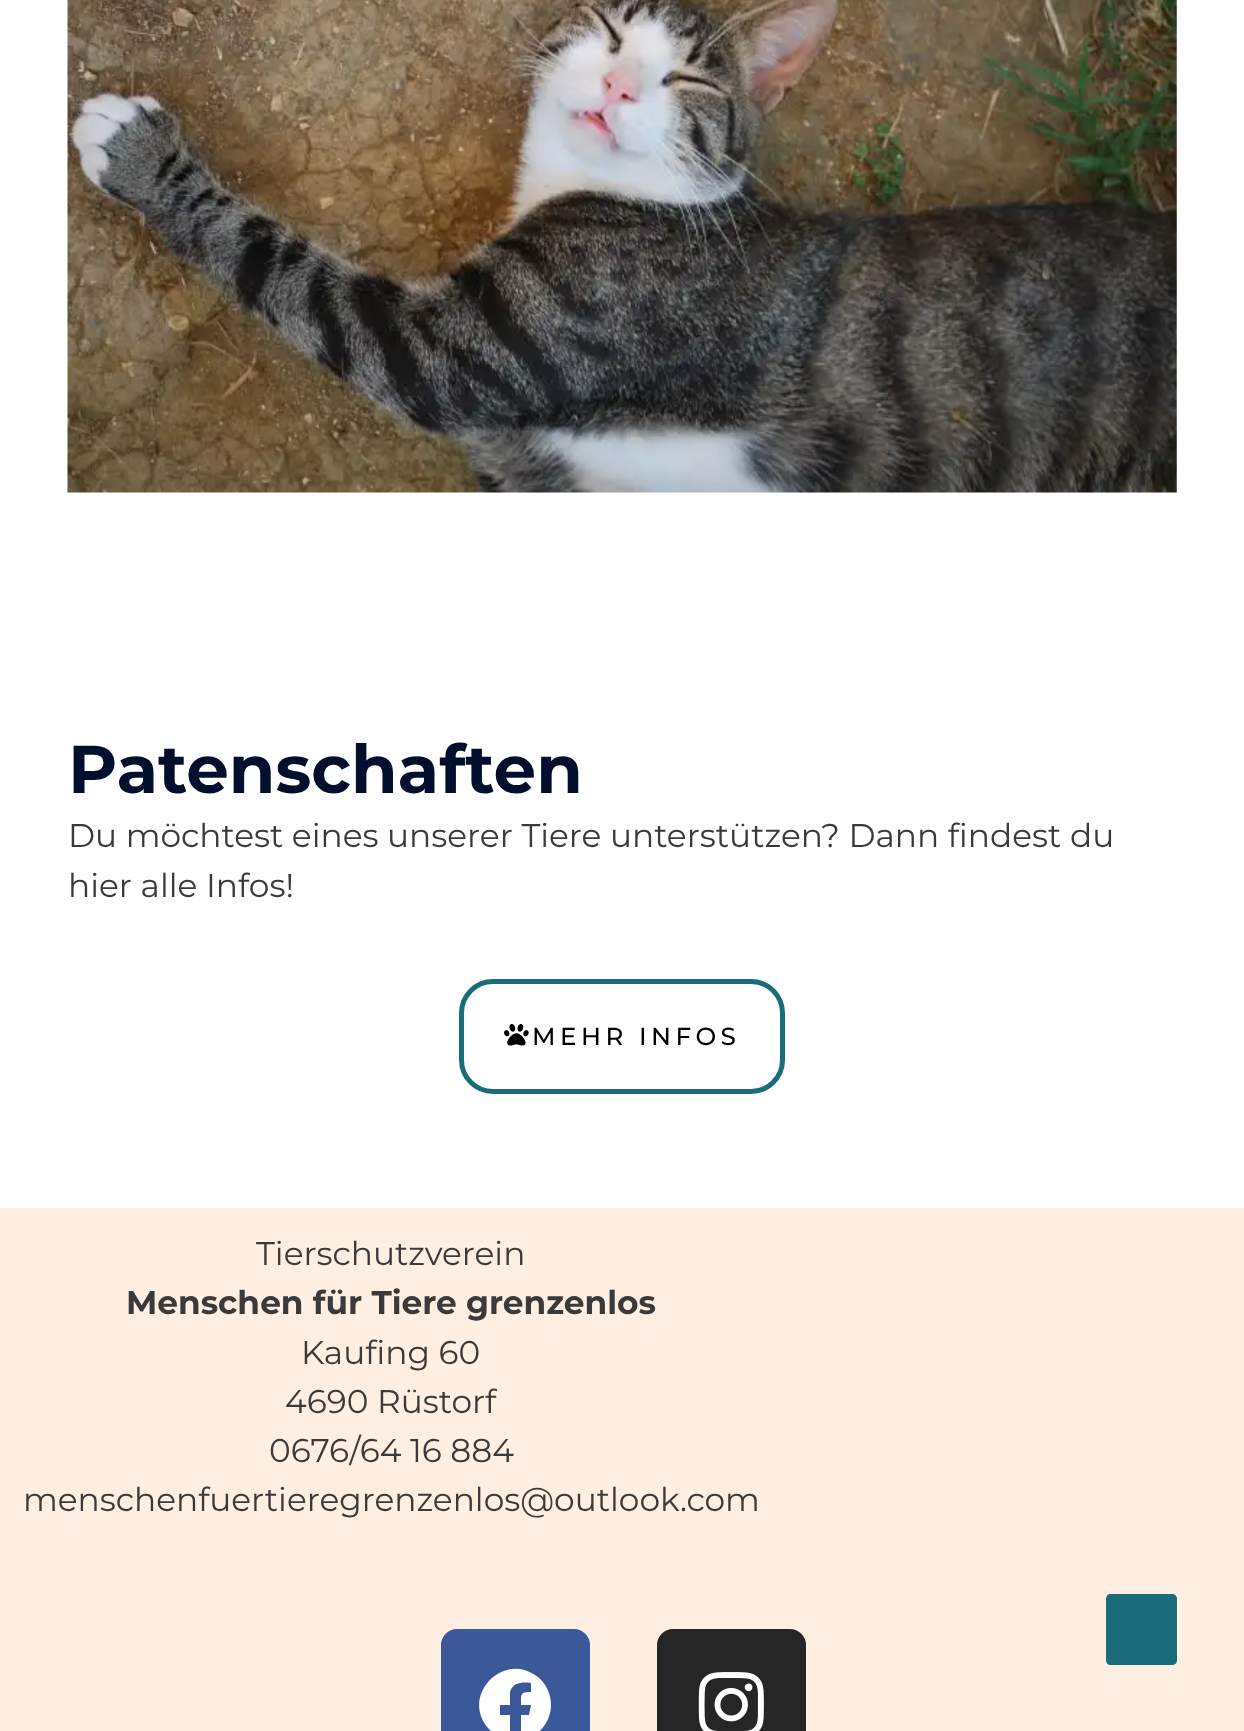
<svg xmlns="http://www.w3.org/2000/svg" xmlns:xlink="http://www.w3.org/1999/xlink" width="1244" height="1731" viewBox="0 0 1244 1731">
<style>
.cls-1{font:bold 67.5px Montserrat;fill:#000f2b}
.cls-2{font:32.8px Montserrat;fill:#3a3a3a}
.cls-3{font:500 24.6px Montserrat;letter-spacing:4.5px;fill:#000000}
.cls-4{font:bold 32.8px Montserrat;fill:#3a3a3a}
</style>
<rect width="100%" height="100%" fill="#ffffff"/>
<image xlink:href="image0.png" x="67" y="0" width="1110" height="493"/>
<rect fill="none" stroke="#1a6c7a" stroke-width="5" x="461.5" y="981.5" width="321" height="110" rx="31.5"/>
<image xlink:href="image1.png" x="504" y="1024" width="25" height="22"/>
<rect fill="#ffefe3" x="0" y="1208" width="1244" height="523"/>
<rect fill="#3b5998" x="441" y="1629" width="149" height="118" rx="16"/>
<path fill="#ffffff" d="M551 1705C551 1722 538 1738 521 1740V1715H529L531 1705H521C521 1694 520 1692 531 1692V1683C523 1682 513 1682 510 1692V1705H500V1715H510V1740C501 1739 494 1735 488 1728C461 1697 501 1652 535 1675C545 1681 551 1693 551 1705Z"/>
<rect fill="#262626" x="657" y="1629" width="149" height="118" rx="16"/>
<image xlink:href="image2.png" x="698" y="1672" width="66" height="59"/>
<path fill="#1a6c7a" d="M1172 1665H1110C1108 1665 1106 1663 1106 1660V1599C1106 1596 1108 1594 1110 1594H1172C1175 1594 1177 1596 1177 1599V1660C1177 1663 1175 1665 1172 1665Z"/>
<text class="cls-1" x="68" y="793">Patenschaften</text>
<text class="cls-2"><tspan x="68" y="847">Du möchtest eines unserer Tiere unterstützen? Dann findest du</tspan><tspan x="68" y="897">hier alle Infos!</tspan></text>
<text class="cls-3" x="532" y="1045">MEHR INFOS</text>
<text class="cls-2" x="256" y="1265">Tierschutzverein</text>
<text class="cls-4" x="126" y="1314">Menschen für Tiere grenzenlos</text>
<text class="cls-2" x="301" y="1364">Kaufing 60</text>
<text class="cls-2" x="285" y="1413">4690 Rüstorf</text>
<text class="cls-2" x="269" y="1462">0676/64 16 884</text>
<text class="cls-2" x="23" y="1511">menschenfuertieregrenzenlos@outlook.com</text>
</svg>
